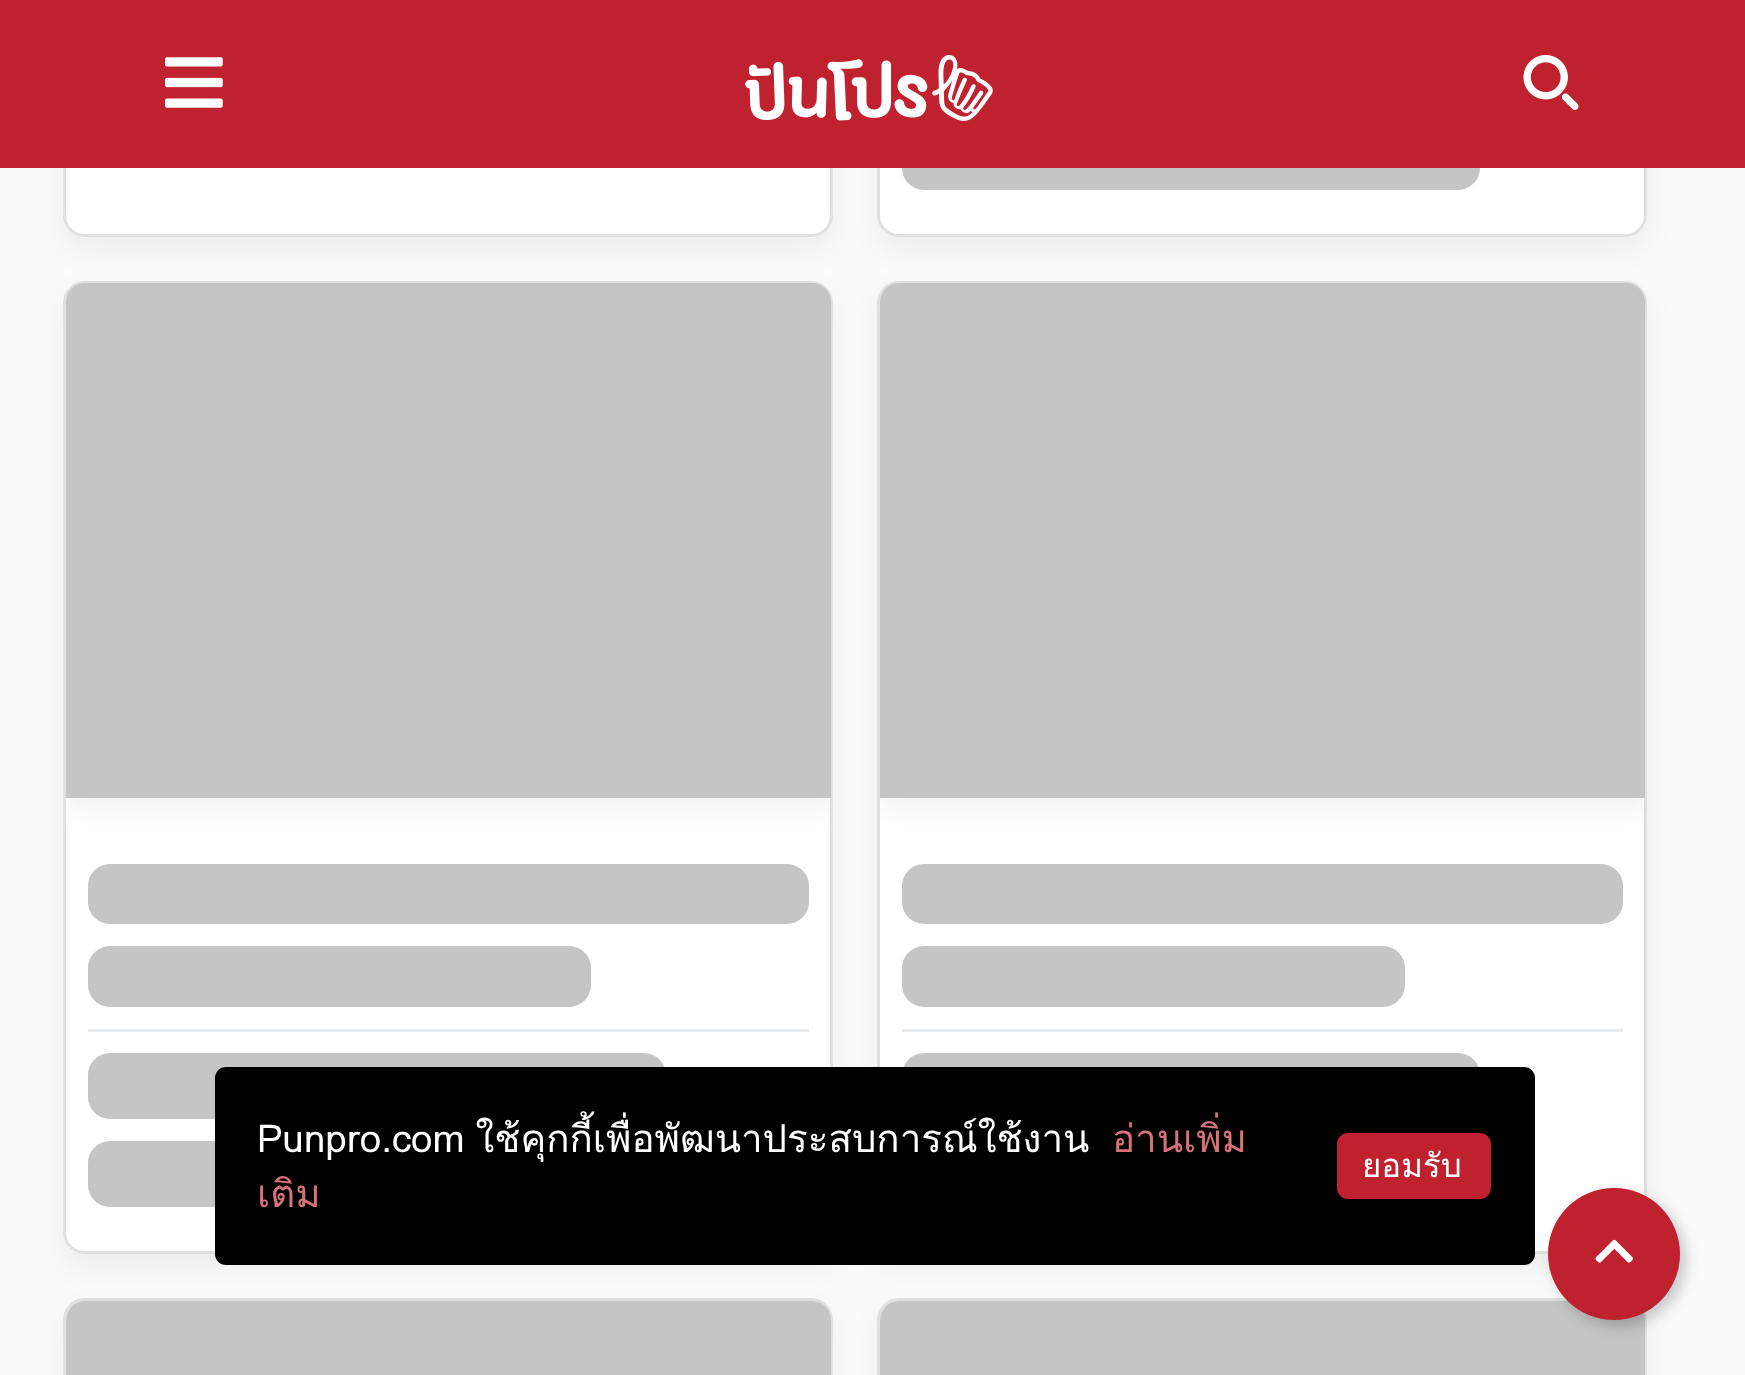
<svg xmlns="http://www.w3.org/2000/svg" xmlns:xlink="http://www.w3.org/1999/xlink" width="1745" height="1375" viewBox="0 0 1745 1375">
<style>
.cls-1{font:38.5px Loma;fill:#ffffff}
.cls-2{font:38.5px Loma;fill:#d7717a}
.cls-3{font:33px Loma;fill:#ffffff}
</style>
<defs>
<linearGradient id="g1" gradientUnits="userSpaceOnUse" x1="77" y1="267" x2="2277" y2="267"><stop offset="0.08" stop-color="#c5c5c5"/><stop offset="0.18" stop-color="#bbbaba"/><stop offset="0.33" stop-color="#c5c5c5"/></linearGradient>
<clipPath id="clip1"><rect x="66" y="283" width="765" height="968" rx="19"/></clipPath>
<clipPath id="clip2"><rect x="66" y="283" width="765" height="968" rx="19"/></clipPath>
<linearGradient id="g2" gradientUnits="userSpaceOnUse" x1="-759" y1="426" x2="1441" y2="426"><stop offset="0.08" stop-color="#c5c5c5"/><stop offset="0.18" stop-color="#bbbaba"/><stop offset="0.33" stop-color="#c5c5c5"/></linearGradient>
<linearGradient id="g3" gradientUnits="userSpaceOnUse" x1="-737" y1="1007" x2="1463" y2="1007"><stop offset="0.08" stop-color="#c5c5c5"/><stop offset="0.18" stop-color="#bbbaba"/><stop offset="0.33" stop-color="#c5c5c5"/></linearGradient>
<linearGradient id="g4" gradientUnits="userSpaceOnUse" x1="-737" y1="1089" x2="1463" y2="1089"><stop offset="0.08" stop-color="#c5c5c5"/><stop offset="0.18" stop-color="#bbbaba"/><stop offset="0.33" stop-color="#c5c5c5"/></linearGradient>
<linearGradient id="g5" gradientUnits="userSpaceOnUse" x1="-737" y1="1196" x2="1463" y2="1196"><stop offset="0.08" stop-color="#c5c5c5"/><stop offset="0.18" stop-color="#bbbaba"/><stop offset="0.33" stop-color="#c5c5c5"/></linearGradient>
<linearGradient id="g6" gradientUnits="userSpaceOnUse" x1="-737" y1="1284" x2="1463" y2="1284"><stop offset="0.08" stop-color="#c5c5c5"/><stop offset="0.18" stop-color="#bbbaba"/><stop offset="0.33" stop-color="#c5c5c5"/></linearGradient>
<clipPath id="clip3"><rect x="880" y="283" width="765" height="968" rx="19"/></clipPath>
<clipPath id="clip4"><rect x="880" y="283" width="765" height="968" rx="19"/></clipPath>
<linearGradient id="g7" gradientUnits="userSpaceOnUse" x1="55" y1="426" x2="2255" y2="426"><stop offset="0.08" stop-color="#c5c5c5"/><stop offset="0.18" stop-color="#bbbaba"/><stop offset="0.33" stop-color="#c5c5c5"/></linearGradient>
<linearGradient id="g8" gradientUnits="userSpaceOnUse" x1="77" y1="1007" x2="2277" y2="1007"><stop offset="0.08" stop-color="#c5c5c5"/><stop offset="0.18" stop-color="#bbbaba"/><stop offset="0.33" stop-color="#c5c5c5"/></linearGradient>
<linearGradient id="g9" gradientUnits="userSpaceOnUse" x1="77" y1="1089" x2="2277" y2="1089"><stop offset="0.08" stop-color="#c5c5c5"/><stop offset="0.18" stop-color="#bbbaba"/><stop offset="0.33" stop-color="#c5c5c5"/></linearGradient>
<linearGradient id="g10" gradientUnits="userSpaceOnUse" x1="77" y1="1196" x2="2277" y2="1196"><stop offset="0.08" stop-color="#c5c5c5"/><stop offset="0.18" stop-color="#bbbaba"/><stop offset="0.33" stop-color="#c5c5c5"/></linearGradient>
<clipPath id="clip5"><rect x="66" y="1301" width="765" height="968" rx="19"/></clipPath>
<linearGradient id="g11" gradientUnits="userSpaceOnUse" x1="-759" y1="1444" x2="1441" y2="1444"><stop offset="0.08" stop-color="#c5c5c5"/><stop offset="0.18" stop-color="#bbbaba"/><stop offset="0.33" stop-color="#c5c5c5"/></linearGradient>
<clipPath id="clip6"><rect x="880" y="1301" width="765" height="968" rx="19"/></clipPath>
<linearGradient id="g12" gradientUnits="userSpaceOnUse" x1="55" y1="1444" x2="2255" y2="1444"><stop offset="0.08" stop-color="#c5c5c5"/><stop offset="0.18" stop-color="#bbbaba"/><stop offset="0.33" stop-color="#c5c5c5"/></linearGradient>
</defs>
<rect width="100%" height="100%" fill="#fafafa"/>
<rect fill="#000000" fill-opacity="0.05" filter="blur(14px)" x="63" y="-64" width="770" height="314" rx="22"/>
<rect fill="#ffffff" x="63" y="-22" width="770" height="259" rx="22"/>
<rect fill="none" stroke="#000000" stroke-opacity="0.12" stroke-width="3" x="64.5" y="-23.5" width="767" height="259" rx="20.5"/>
<rect fill="#000000" fill-opacity="0.05" filter="blur(14px)" x="877" y="-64" width="770" height="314" rx="22"/>
<rect fill="#ffffff" x="877" y="-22" width="770" height="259" rx="22"/>
<rect fill="none" stroke="#000000" stroke-opacity="0.12" stroke-width="3" x="878.5" y="-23.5" width="767" height="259" rx="20.5"/>
<rect fill="url(#g1)" x="902" y="124" width="578" height="66" rx="22"/>
<rect fill="#000000" fill-opacity="0.05" filter="blur(14px)" x="63" y="294" width="770" height="974" rx="22"/>
<rect fill="#ffffff" x="63" y="281" width="770" height="973" rx="22"/>
<rect fill="none" stroke="#000000" stroke-opacity="0.12" stroke-width="3" x="64.5" y="282.5" width="767" height="970" rx="20.5"/>
<g clip-path="url(#clip1)">
<rect fill="#000000" fill-opacity="0.05" filter="blur(14px)" x="66" y="297" width="770" height="514" rx="11"/>
</g>
<g clip-path="url(#clip2)">
<path fill="url(#g2)" d="M77 283H825C831 283 836 288 836 294V798H66V294C66 288 71 283 77 283Z"/>
</g>
<rect fill="url(#g3)" x="88" y="864" width="721" height="60" rx="22"/>
<rect fill="url(#g4)" x="88" y="946" width="503" height="61" rx="22"/>
<rect fill="#e9ecef" x="88" y="1029" width="721" height="3"/>
<rect fill="url(#g5)" x="88" y="1053" width="578" height="66" rx="22"/>
<rect fill="url(#g6)" x="88" y="1141" width="578" height="66" rx="22"/>
<rect fill="#000000" fill-opacity="0.05" filter="blur(14px)" x="877" y="294" width="770" height="974" rx="22"/>
<rect fill="#ffffff" x="877" y="281" width="770" height="973" rx="22"/>
<rect fill="none" stroke="#000000" stroke-opacity="0.12" stroke-width="3" x="878.5" y="282.5" width="767" height="970" rx="20.5"/>
<g clip-path="url(#clip3)">
<rect fill="#000000" fill-opacity="0.05" filter="blur(14px)" x="880" y="297" width="770" height="514" rx="11"/>
</g>
<g clip-path="url(#clip4)">
<path fill="url(#g7)" d="M891 283H1639C1645 283 1650 288 1650 294V798H880V294C880 288 885 283 891 283Z"/>
</g>
<rect fill="url(#g8)" x="902" y="864" width="721" height="60" rx="22"/>
<rect fill="url(#g9)" x="902" y="946" width="503" height="61" rx="22"/>
<rect fill="#e9ecef" x="902" y="1029" width="721" height="3"/>
<rect fill="url(#g10)" x="902" y="1053" width="578" height="66" rx="22"/>
<rect fill="#000000" fill-opacity="0.05" filter="blur(14px)" x="63" y="1312" width="770" height="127" rx="22"/>
<rect fill="#ffffff" x="63" y="1298" width="770" height="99" rx="22"/>
<rect fill="none" stroke="#000000" stroke-opacity="0.12" stroke-width="3" x="64.5" y="1299.5" width="767" height="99" rx="20.5"/>
<g clip-path="url(#clip5)">
<path fill="url(#g11)" d="M77 1301H825C831 1301 836 1306 836 1312V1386H66V1312C66 1306 71 1301 77 1301Z"/>
</g>
<rect fill="#000000" fill-opacity="0.05" filter="blur(14px)" x="877" y="1312" width="770" height="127" rx="22"/>
<rect fill="#ffffff" x="877" y="1298" width="770" height="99" rx="22"/>
<rect fill="none" stroke="#000000" stroke-opacity="0.12" stroke-width="3" x="878.5" y="1299.5" width="767" height="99" rx="20.5"/>
<g clip-path="url(#clip6)">
<path fill="url(#g12)" d="M891 1301H1639C1645 1301 1650 1306 1650 1312V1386H880V1312C880 1306 885 1301 891 1301Z"/>
</g>
<rect fill="#c0212f" x="0" y="0" width="1745" height="168"/>
<image xlink:href="image0.png" x="165" y="57" width="58" height="51"/>
<image xlink:href="image1.png" x="745" y="55" width="248" height="66"/>
<image xlink:href="image2.png" x="1523" y="55" width="56" height="55"/>
<rect fill="#000000" fill-opacity="0.2" filter="blur(7px)" x="1554" y="1194" width="132" height="132" rx="66"/>
<rect fill="#000000" x="215" y="1067" width="1320" height="198" rx="11"/>
<rect fill="#c0212f" x="1337" y="1133" width="154" height="66" rx="11"/>
<circle fill="#c0212f" cx="1614" cy="1254" r="66"/>
<image xlink:href="image3.png" x="1595" y="1239" width="38" height="24"/>
<text class="cls-1" x="257" y="1152" word-spacing="-2">Punpro.com ใช้คุกกี้เพื่อพัฒนาประสบการณ์ใช้งาน</text>
<text class="cls-2" x="1112" y="1152">อ่านเพิ่ม</text>
<text class="cls-2" x="257" y="1207">เติม</text>
<text class="cls-3" x="1362" y="1177">ยอมรับ</text>
</svg>
